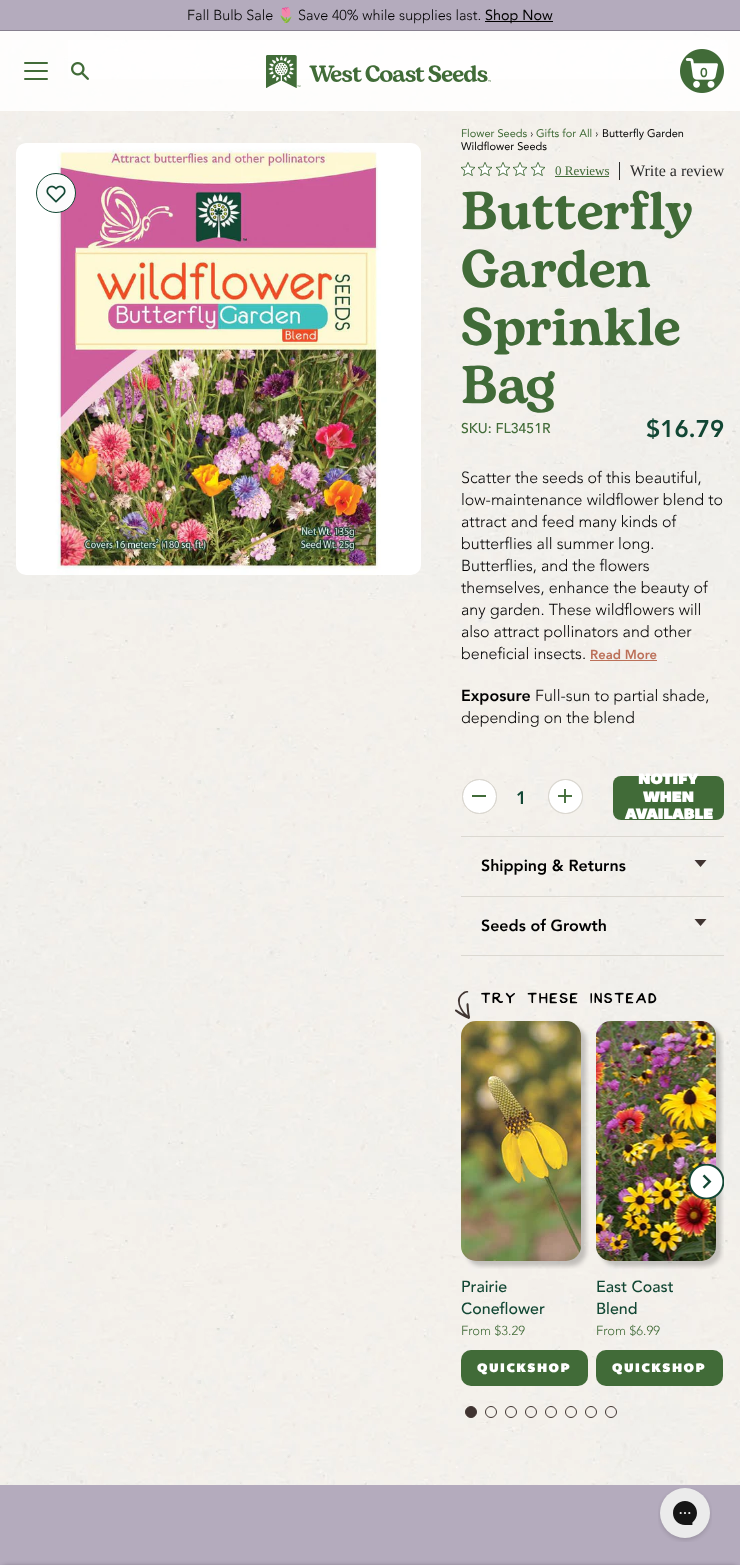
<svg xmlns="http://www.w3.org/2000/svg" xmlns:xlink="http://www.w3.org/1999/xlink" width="740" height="1565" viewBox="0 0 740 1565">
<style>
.cls-1{font:300 14.4px Avenir;fill:#000000}
.cls-2{font:14.4px Noto Color Emoji;fill:#000000}
.cls-3{font:14.4px Avenir;fill:#000000}
.cls-4{font:900 13px Avenir;letter-spacing:-1px;fill:#416b38}
.cls-5{font:11px Avenir;fill:#416b38}
.cls-6{font:300 11px Avenir;fill:#060505}
.cls-7{font:11px Avenir;fill:#000000}
.cls-8{font:13px Liberation Serif;fill:#416b38}
.cls-9{font:16px Liberation Serif;fill:#2c2c2c}
.cls-10{font:600 53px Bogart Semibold;fill:#416b38}
.cls-11{font:500 14px Avenir;fill:#416b38}
.cls-12{font:900 24px Avenir;fill:#124734}
.cls-13{font:300 16px Avenir;fill:#060505}
.cls-14{font:900 13px Avenir;fill:#bc7059}
.cls-15{font:900 16px Avenir;fill:#000000}
.cls-16{font:900 18px Avenir;fill:#124734}
.cls-17{font:bold 15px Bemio;fill:#ffffff}
.cls-18{font:500 20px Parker;letter-spacing:2px;fill:#000000}
.cls-19{font:500 16px Avenir;fill:#124734}
.cls-20{font:300 13px Avenir;fill:#416b38}
.cls-21{font:12.75px Bemio;letter-spacing:1.5px;fill:#ffffff}
</style>
<rect width="100%" height="100%" fill="#ffffff"/>
<image xlink:href="image0.png" x="0" y="31" width="740" height="1454"/>
<rect fill="#ffffff" fill-opacity="0.85" x="0" y="31" width="740" height="80"/>
<rect fill="#b4abbd" x="0" y="0" width="740" height="30"/>
<rect fill="#87808e" x="0" y="30" width="740" height="1"/>
<rect fill="#000000" x="485" y="21" width="68" height="1"/>
<rect fill="#ffffff" fill-opacity="0.6" x="68" y="40" width="660" height="39"/>
<rect fill="#416b38" x="24" y="62" width="24" height="2" rx="1"/>
<rect fill="#416b38" x="24" y="70" width="24" height="2" rx="1"/>
<rect fill="#416b38" x="24" y="78" width="24" height="2" rx="1"/>
<image xlink:href="image1.png" x="71" y="62" width="18" height="18"/>
<image xlink:href="image2.png" x="266" y="55" width="225" height="33"/>
<image xlink:href="image3.png" x="680" y="49" width="44" height="44"/>
<image xlink:href="image4.png" x="16" y="143" width="405" height="432"/>
<circle fill="#fcfcfc" stroke="#124734" cx="56" cy="193" r="19.5"/>
<image xlink:href="image5.png" x="46" y="185" width="20" height="18"/>
<image xlink:href="image6.png" x="461" y="162" width="14" height="14"/>
<image xlink:href="image7.png" x="478" y="162" width="14" height="14"/>
<image xlink:href="image8.png" x="496" y="162" width="14" height="14"/>
<image xlink:href="image9.png" x="513" y="162" width="14" height="14"/>
<image xlink:href="image10.png" x="531" y="162" width="14" height="14"/>
<rect fill="#416b38" x="555" y="176" width="54" height="1"/>
<rect fill="#2c2c2c" x="619" y="162" width="1" height="18"/>
<rect fill="#bc7059" x="590" y="660" width="67" height="1"/>
<circle fill="#ffffff" stroke="#dbd8d1" cx="479.5" cy="796.5" r="17"/>
<rect fill="#416b38" x="472" y="795" width="14" height="2"/>
<circle fill="none" stroke="#dbd8d1" cx="479.5" cy="796.5" r="17"/>
<image xlink:href="image11.png" x="548" y="779" width="35" height="35"/>
<rect fill="#416b38" x="613" y="776" width="111" height="44" rx="8"/>
<rect fill="#dbd8d1" x="461" y="836" width="263" height="1"/>
<rect fill="#dbd8d1" x="461" y="896" width="263" height="1"/>
<path fill="#403431" d="M694.5 860H706.5L700.5 867Z"/>
<rect fill="#dbd8d1" x="461" y="955" width="263" height="1"/>
<path fill="#403431" d="M694.5 919H706.5L700.5 926Z"/>
<image xlink:href="image12.png" x="455" y="991" width="15" height="28"/>
<image xlink:href="image15.png" x="596" y="1021" width="128" height="248"/>
<image xlink:href="image13.png" x="688" y="1163" width="36" height="37"/>
<image xlink:href="image14.png" x="461" y="1021" width="128" height="248"/>
<rect fill="#416b38" x="461" y="1350" width="127" height="36" rx="10"/>
<rect fill="#416b38" x="596" y="1350" width="127" height="36" rx="10"/>
<circle fill="#403431" stroke="#403431" cx="471" cy="1412" r="5.5"/>
<circle fill="none" stroke="#403431" cx="491" cy="1412" r="5.5"/>
<circle fill="none" stroke="#403431" cx="511" cy="1412" r="5.5"/>
<circle fill="none" stroke="#403431" cx="531" cy="1412" r="5.5"/>
<circle fill="none" stroke="#403431" cx="551" cy="1412" r="5.5"/>
<circle fill="none" stroke="#403431" cx="571" cy="1412" r="5.5"/>
<circle fill="none" stroke="#403431" cx="591" cy="1412" r="5.5"/>
<circle fill="none" stroke="#403431" cx="611" cy="1412" r="5.5"/>
<rect fill="#b4abbd" x="0" y="1485" width="740" height="80"/>
<image xlink:href="image16.png" x="658" y="1488" width="54" height="54"/>
<rect fill="#000000" fill-opacity="0.2" filter="blur(2px)" x="0" y="1565" width="740" height="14" rx="8"/>
<text class="cls-1" x="187" y="20">Fall Bulb Sale</text>
<text class="cls-2" x="277" y="20">🌷</text>
<text class="cls-1" x="298" y="20">Save 40% while supplies last.</text>
<text class="cls-3" x="485" y="20">Shop Now</text>
<text class="cls-4" x="700" y="77">0</text>
<text class="cls-5" x="461" y="137">Flower Seeds</text>
<text class="cls-6" x="530" y="137">›</text>
<text class="cls-5" x="536" y="137">Gifts for All</text>
<text class="cls-6" x="595" y="137">›</text>
<text class="cls-7" x="602" y="137">Butterfly Garden</text>
<text class="cls-7" x="461" y="150">Wildflower Seeds</text>
<text class="cls-8" x="555" y="175">0 Reviews</text>
<text class="cls-9" x="630" y="176">Write a review</text>
<text class="cls-10"><tspan x="461" y="229">Butterfly</tspan><tspan x="461" y="287">Garden</tspan><tspan x="461" y="345">Sprinkle</tspan><tspan x="461" y="403">Bag</tspan></text>
<text class="cls-11" x="461" y="433">SKU: FL3451R</text>
<text class="cls-12" x="646" y="437">$16.79</text>
<text class="cls-13"><tspan x="461" y="483">Scatter the seeds of this beautiful,</tspan><tspan x="461" y="505">low-maintenance wildflower blend to</tspan><tspan x="461" y="527">attract and feed many kinds of</tspan><tspan x="461" y="549">butterflies all summer long.</tspan><tspan x="461" y="571">Butterflies, and the flowers</tspan><tspan x="461" y="593">themselves, enhance the beauty of</tspan><tspan x="461" y="615">any garden. These wildflowers will</tspan><tspan x="461" y="637">also attract pollinators and other</tspan><tspan x="461" y="659">beneficial insects.</tspan></text>
<text class="cls-14" x="590" y="659">Read More</text>
<text class="cls-15" x="461" y="701">Exposure</text>
<text class="cls-13" x="535" y="701">Full-sun to partial shade,</text>
<text class="cls-13" x="461" y="723">depending on the blend</text>
<text class="cls-16" x="516" y="804">1</text>
<text class="cls-17" x="638" y="784">NOTIFY</text>
<text class="cls-17" x="643" y="802">WHEN</text>
<text class="cls-17" x="625" y="819">AVAILABLE</text>
<text class="cls-15" x="481" y="871">Shipping &amp; Returns</text>
<text class="cls-15" x="481" y="931">Seeds of Growth</text>
<text class="cls-18" x="481" y="1005">TRY THESE INSTEAD</text>
<text class="cls-19"><tspan x="461" y="1292">Prairie</tspan><tspan x="461" y="1314">Coneflower</tspan></text>
<text class="cls-20" x="461" y="1335">From $3.29</text>
<text class="cls-21" x="477" y="1372">QUICKSHOP</text>
<text class="cls-19"><tspan x="596" y="1292">East Coast</tspan><tspan x="596" y="1314">Blend</tspan></text>
<text class="cls-20" x="596" y="1335">From $6.99</text>
<text class="cls-21" x="612" y="1372">QUICKSHOP</text>
</svg>
